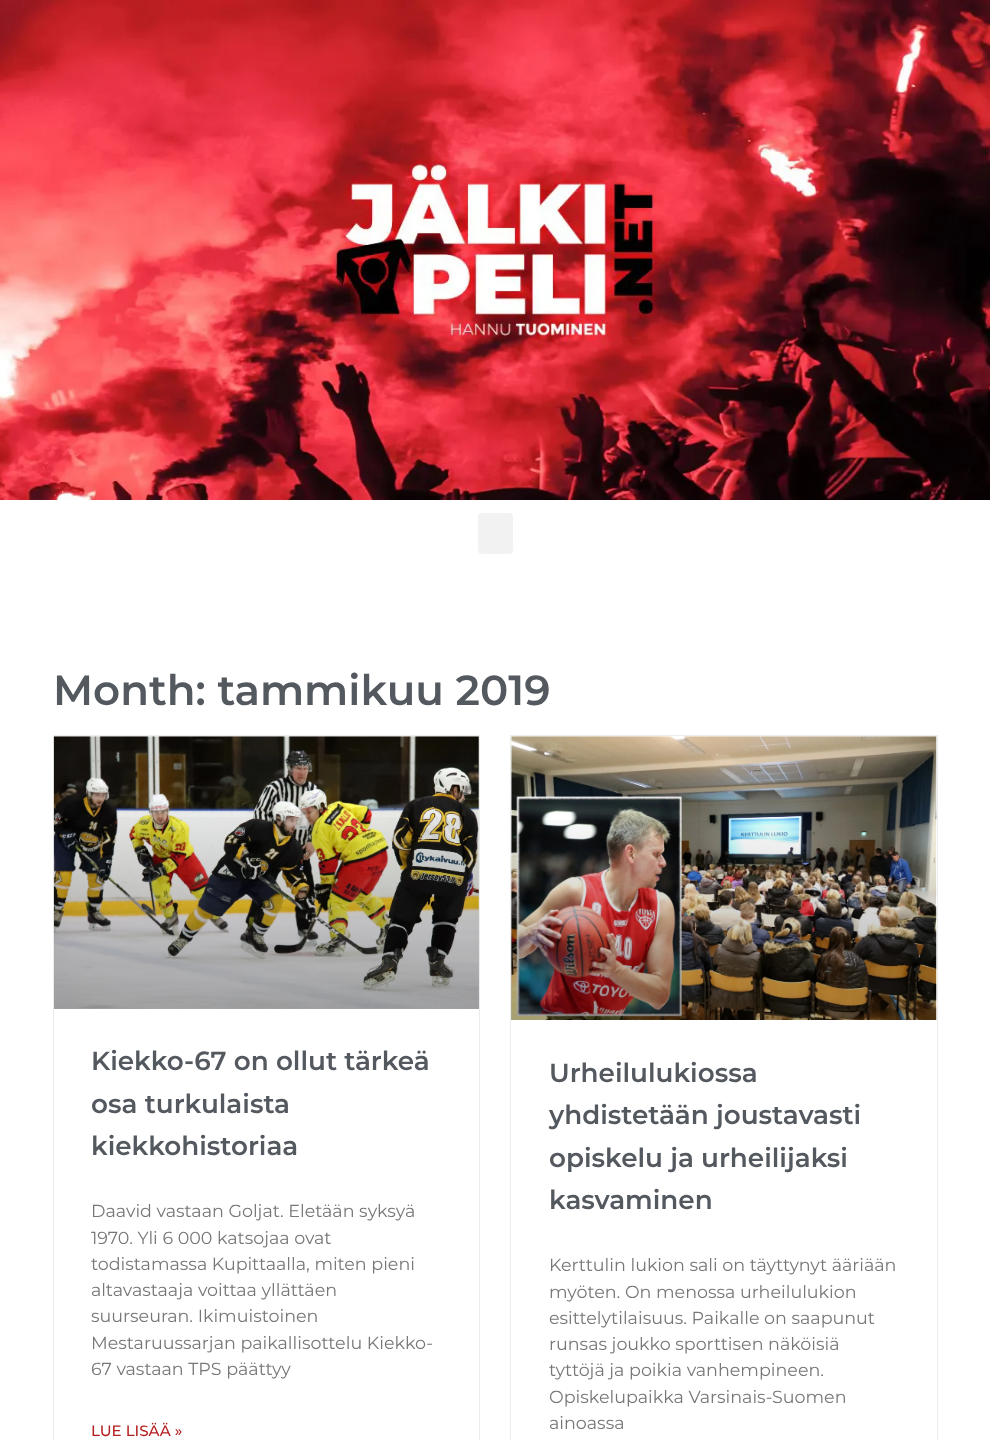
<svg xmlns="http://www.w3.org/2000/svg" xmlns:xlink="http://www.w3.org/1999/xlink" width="990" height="1440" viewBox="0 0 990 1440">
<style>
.cls-1{font:600 42px Montserrat;fill:#54595f}
.cls-2{font:600 26.25px Montserrat;fill:#54595f}
.cls-3{font:17.5px Montserrat;fill:#777777}
.cls-4{font:500 15px Montserrat;fill:#b41d1e}
</style>
<defs>
<linearGradient id="g1" gradientUnits="userSpaceOnUse" x1="266" y1="1009" x2="266" y2="736"><stop offset="0" stop-color="#000000" stop-opacity="0.35"/><stop offset="0.75" stop-color="#000000" stop-opacity="0"/></linearGradient>
<linearGradient id="g2" gradientUnits="userSpaceOnUse" x1="724" y1="1020" x2="724" y2="736"><stop offset="0" stop-color="#000000" stop-opacity="0.35"/><stop offset="0.75" stop-color="#000000" stop-opacity="0"/></linearGradient>
</defs>
<rect width="100%" height="100%" fill="#ffffff"/>
<image xlink:href="image0.png" x="0" y="0" width="990" height="500"/>
<rect fill="#f2f2f2" x="478" y="513" width="35" height="41" rx="4"/>
<rect fill="none" stroke="#ececec" x="53.5" y="735.5" width="426" height="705"/>
<image xlink:href="image1.png" x="53" y="736" width="426" height="273"/>
<rect fill="url(#g1)" x="54" y="817" width="425" height="192"/>
<rect fill="none" stroke="#ececec" x="510.5" y="735.5" width="427" height="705"/>
<image xlink:href="image2.png" x="511" y="736" width="426" height="284"/>
<rect fill="url(#g2)" x="511" y="820" width="425" height="200"/>
<text class="cls-1" x="53" y="705">Month: tammikuu 2019</text>
<text class="cls-2"><tspan x="91" y="1070">Kiekko-67 on ollut tärkeä</tspan><tspan x="91" y="1113">osa turkulaista</tspan><tspan x="91" y="1155">kiekkohistoriaa</tspan></text>
<text class="cls-3"><tspan x="91" y="1217">Daavid vastaan Goljat. Eletään syksyä</tspan><tspan x="91" y="1244">1970. Yli 6 000 katsojaa ovat</tspan><tspan x="91" y="1270">todistamassa Kupittaalla, miten pieni</tspan><tspan x="91" y="1296">altavastaaja voittaa yllättäen</tspan><tspan x="91" y="1322">suurseuran. Ikimuistoinen</tspan><tspan x="91" y="1349">Mestaruussarjan paikallisottelu Kiekko-</tspan><tspan x="91" y="1375">67 vastaan TPS päättyy</tspan></text>
<text class="cls-4" x="91" y="1436">LUE LISÄÄ »</text>
<text class="cls-2"><tspan x="549" y="1082">Urheilulukiossa</tspan><tspan x="549" y="1124">yhdistetään joustavasti</tspan><tspan x="549" y="1167">opiskelu ja urheilijaksi</tspan><tspan x="549" y="1209">kasvaminen</tspan></text>
<text class="cls-3"><tspan x="549" y="1271">Kerttulin lukion sali on täyttynyt ääriään</tspan><tspan x="549" y="1298">myöten. On menossa urheilulukion</tspan><tspan x="549" y="1324">esittelytilaisuus. Paikalle on saapunut</tspan><tspan x="549" y="1350">runsas joukko sporttisen näköisiä</tspan><tspan x="549" y="1376">tyttöjä ja poikia vanhempineen.</tspan><tspan x="549" y="1403">Opiskelupaikka Varsinais-Suomen</tspan><tspan x="549" y="1429">ainoassa</tspan></text>
</svg>
